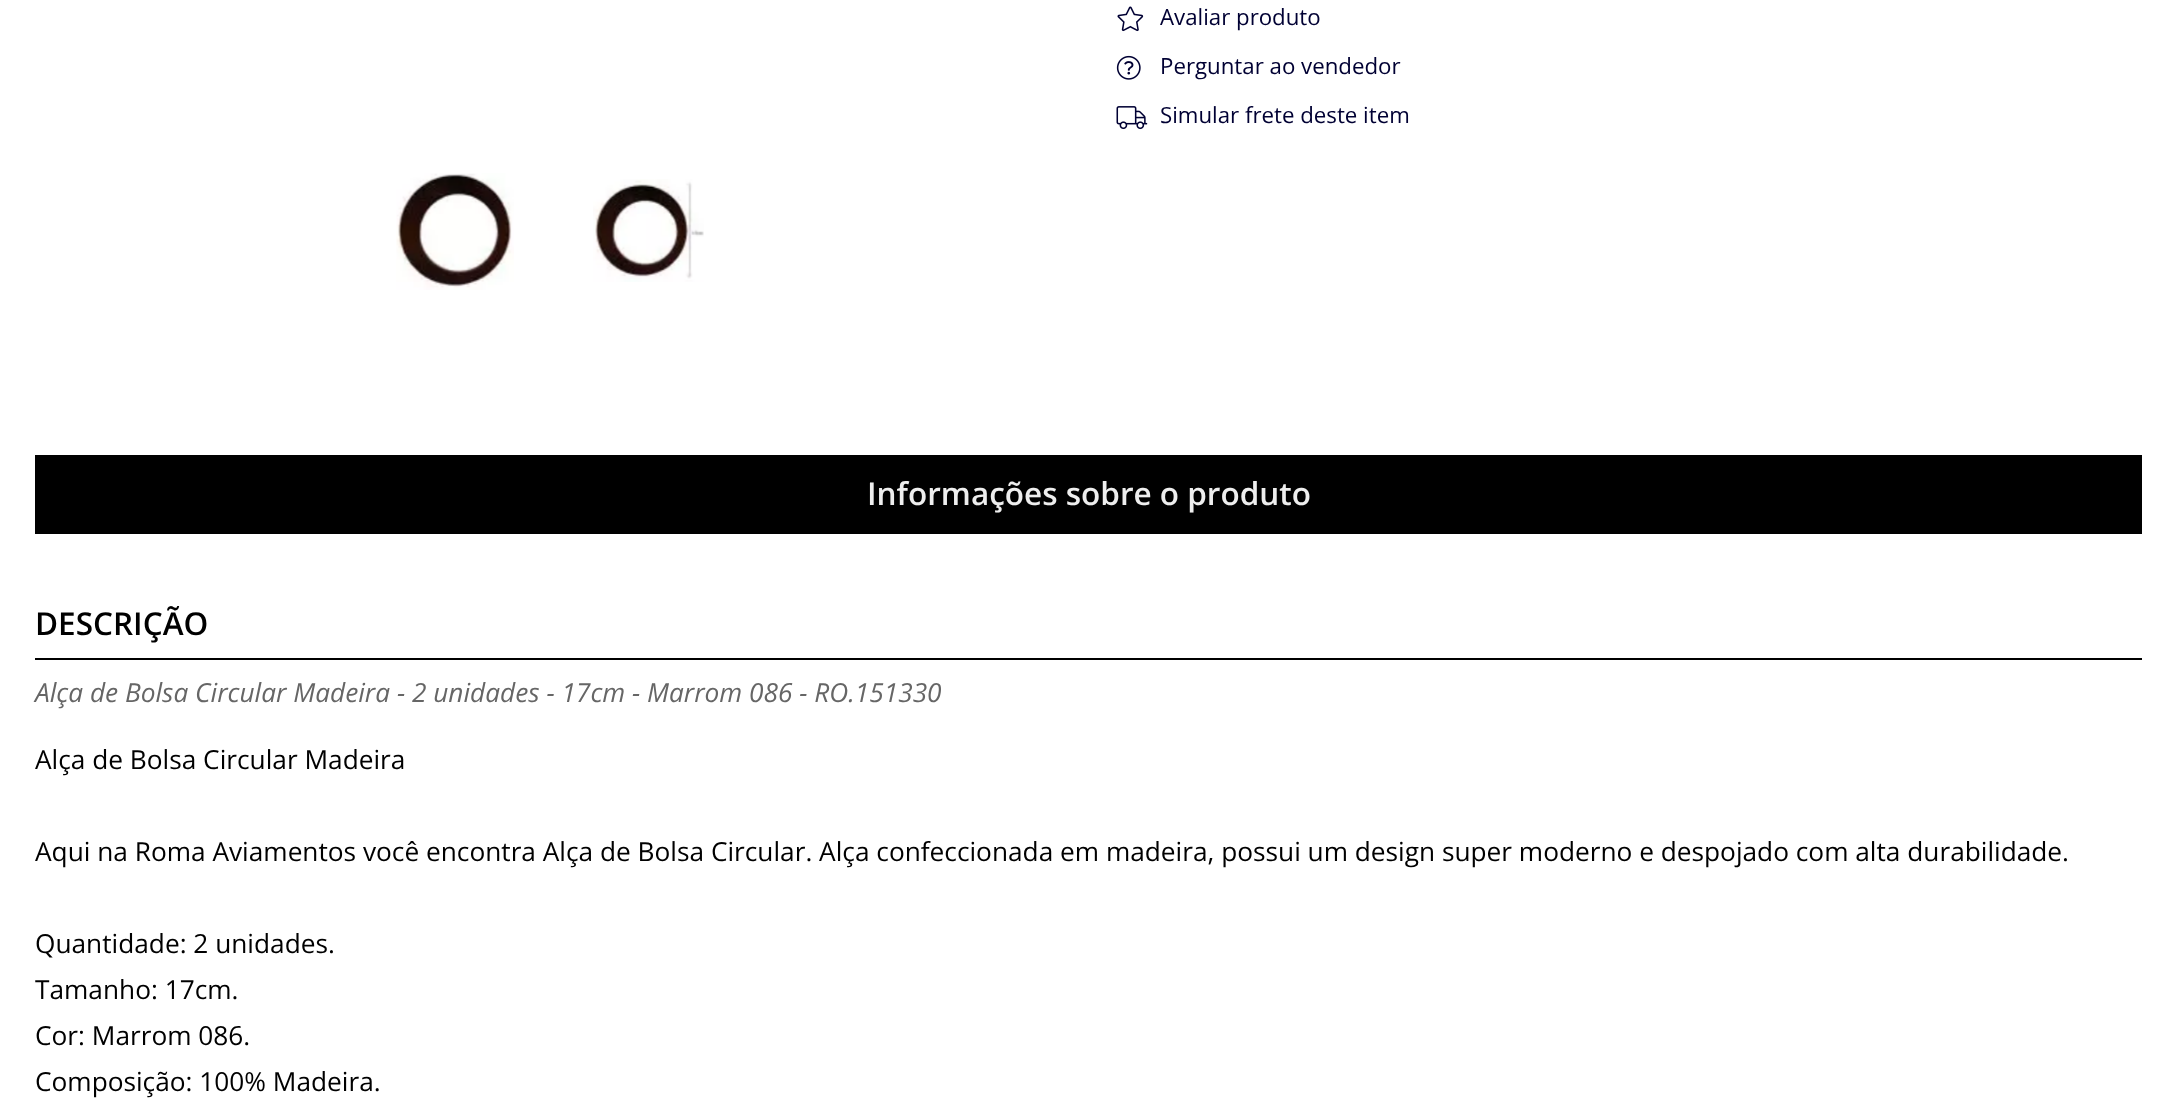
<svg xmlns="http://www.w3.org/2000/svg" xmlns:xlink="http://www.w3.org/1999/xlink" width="2176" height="1109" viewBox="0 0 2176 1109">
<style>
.cls-1{font:22.25px Open Sans;fill:#000033}
.cls-2{font:600 31.5px Open Sans;fill:#eeeeee}
.cls-3{font:600 31.5px Open Sans;fill:#000000}
.cls-4{font:italic 26.25px Open Sans;fill:#666666}
.cls-5{font:26.25px Open Sans;fill:#000000}
</style>
<rect width="100%" height="100%" fill="#ffffff"/>
<image xlink:href="image0.png" x="1117" y="6" width="27" height="26"/>
<image xlink:href="image1.png" x="1116" y="55" width="25" height="25"/>
<image xlink:href="image2.png" x="1116" y="106" width="32" height="24"/>
<image xlink:href="image3.png" x="396" y="173" width="118" height="117"/>
<image xlink:href="image4.png" x="593" y="179" width="111" height="103"/>
<rect fill="#000000" x="35" y="455" width="2107" height="79"/>
<rect fill="#000000" x="35" y="658" width="2107" height="2"/>
<text class="cls-1" x="1160" y="25">Avaliar produto</text>
<text class="cls-1" x="1160" y="74">Perguntar ao vendedor</text>
<text class="cls-1" x="1160" y="123">Simular frete deste item</text>
<text class="cls-2" x="867" y="505">Informações sobre o produto</text>
<text class="cls-3" x="35" y="635">DESCRIÇÃO</text>
<text class="cls-4" x="35" y="702">Alça de Bolsa Circular Madeira - 2 unidades - 17cm - Marrom 086 - RO.151330</text>
<text class="cls-5" x="35" y="769">Alça de Bolsa Circular Madeira</text>
<text class="cls-5" x="35" y="861">Aqui na Roma Aviamentos você encontra Alça de Bolsa Circular. Alça confeccionada em madeira, possui um design super moderno e despojado com alta durabilidade.</text>
<text class="cls-5"><tspan x="35" y="953">Quantidade: 2 unidades.</tspan><tspan x="35" y="999">Tamanho: 17cm.</tspan><tspan x="35" y="1045">Cor: Marrom 086.</tspan><tspan x="35" y="1091">Composição: 100% Madeira.</tspan></text>
</svg>
